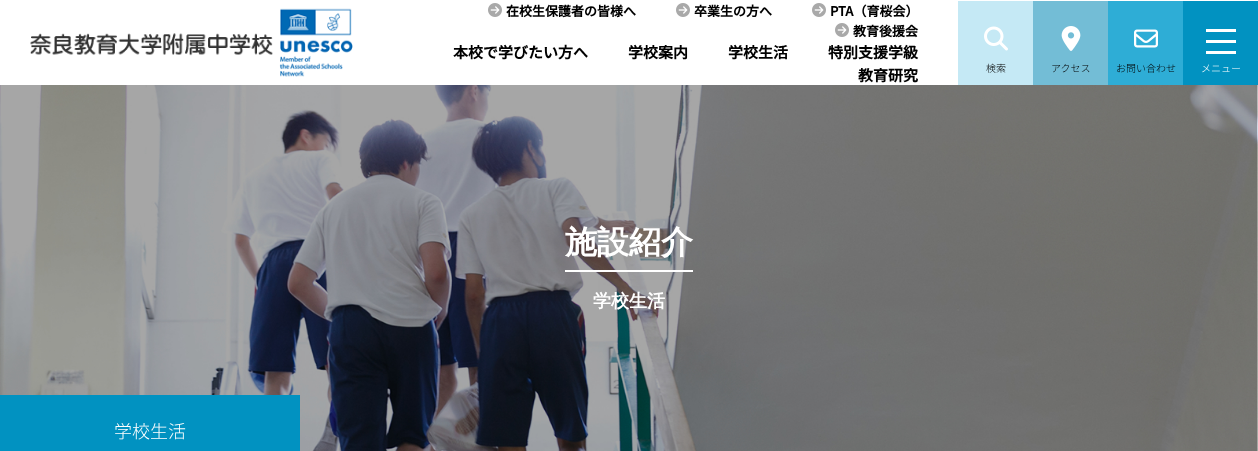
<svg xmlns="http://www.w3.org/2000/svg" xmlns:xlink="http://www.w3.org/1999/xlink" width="1258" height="451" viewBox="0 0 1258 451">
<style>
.cls-1{font:bold 13px Noto Sans JP;fill:#000000}
.cls-2{font:bold 15px Noto Sans JP;fill:#000000}
.cls-3{font:300 10px Noto Sans JP;fill:#000000}
.cls-4{font:300 10px Noto Sans JP;fill:#ffffff}
.cls-5{font:bold 32px WenQuanYi Zen Hei;fill:#ffffff}
.cls-6{font:bold 18px WenQuanYi Zen Hei;fill:#ffffff}
.cls-7{font:300 18px Noto Sans JP;fill:#ffffff}
</style>
<rect width="100%" height="100%" fill="#ffffff"/>
<image xlink:href="image0.png" x="30" y="8" width="323" height="69"/>
<image xlink:href="image1.png" x="488" y="3" width="14" height="14"/>
<image xlink:href="image1.png" x="676" y="3" width="14" height="14"/>
<image xlink:href="image1.png" x="812" y="3" width="14" height="14"/>
<image xlink:href="image1.png" x="835" y="23" width="14" height="14"/>
<rect fill="#c5e9f5" x="958" y="1" width="75" height="84"/>
<image xlink:href="image2.png" x="984" y="26" width="24" height="25"/>
<rect fill="#73bdd6" x="1033" y="1" width="75" height="84"/>
<image xlink:href="image3.png" x="1061" y="26" width="20" height="25"/>
<rect fill="#2eadd6" x="1108" y="1" width="75" height="84"/>
<image xlink:href="image4.png" x="1134" y="29" width="24" height="19"/>
<rect fill="#0192c1" x="1183" y="1" width="75" height="84"/>
<rect fill="#ffffff" x="1206" y="29" width="30" height="3"/>
<rect fill="#ffffff" x="1206" y="40" width="30" height="3"/>
<rect fill="#ffffff" x="1206" y="51" width="30" height="3"/>
<image xlink:href="image5.png" x="0" y="85" width="1258" height="366"/>
<rect fill="#ffffff" x="565" y="270" width="128" height="2"/>
<rect fill="#0192c1" x="0" y="395" width="300" height="56"/>
<text class="cls-1" x="506" y="16">在校生保護者の皆様へ</text>
<text class="cls-1" x="694" y="16">卒業生の方へ</text>
<text class="cls-1" x="830" y="16">PTA（育桜会）</text>
<text class="cls-1" x="853" y="36">教育後援会</text>
<text class="cls-2" x="453" y="58">本校で学びたい方へ</text>
<text class="cls-2" x="628" y="58">学校案内</text>
<text class="cls-2" x="728" y="58">学校生活</text>
<text class="cls-2" x="828" y="58">特別支援学級</text>
<text class="cls-2" x="858" y="81">教育研究</text>
<text class="cls-3" x="986" y="72">検索</text>
<text class="cls-3" x="1051" y="72">アクセス</text>
<text class="cls-3" x="1116" y="72">お問い合わせ</text>
<text class="cls-4" x="1201" y="72">メニュー</text>
<text class="cls-5" x="565" y="253">施設紹介</text>
<text class="cls-6" x="593" y="307">学校生活</text>
<text class="cls-7" x="114" y="438">学校生活</text>
</svg>
